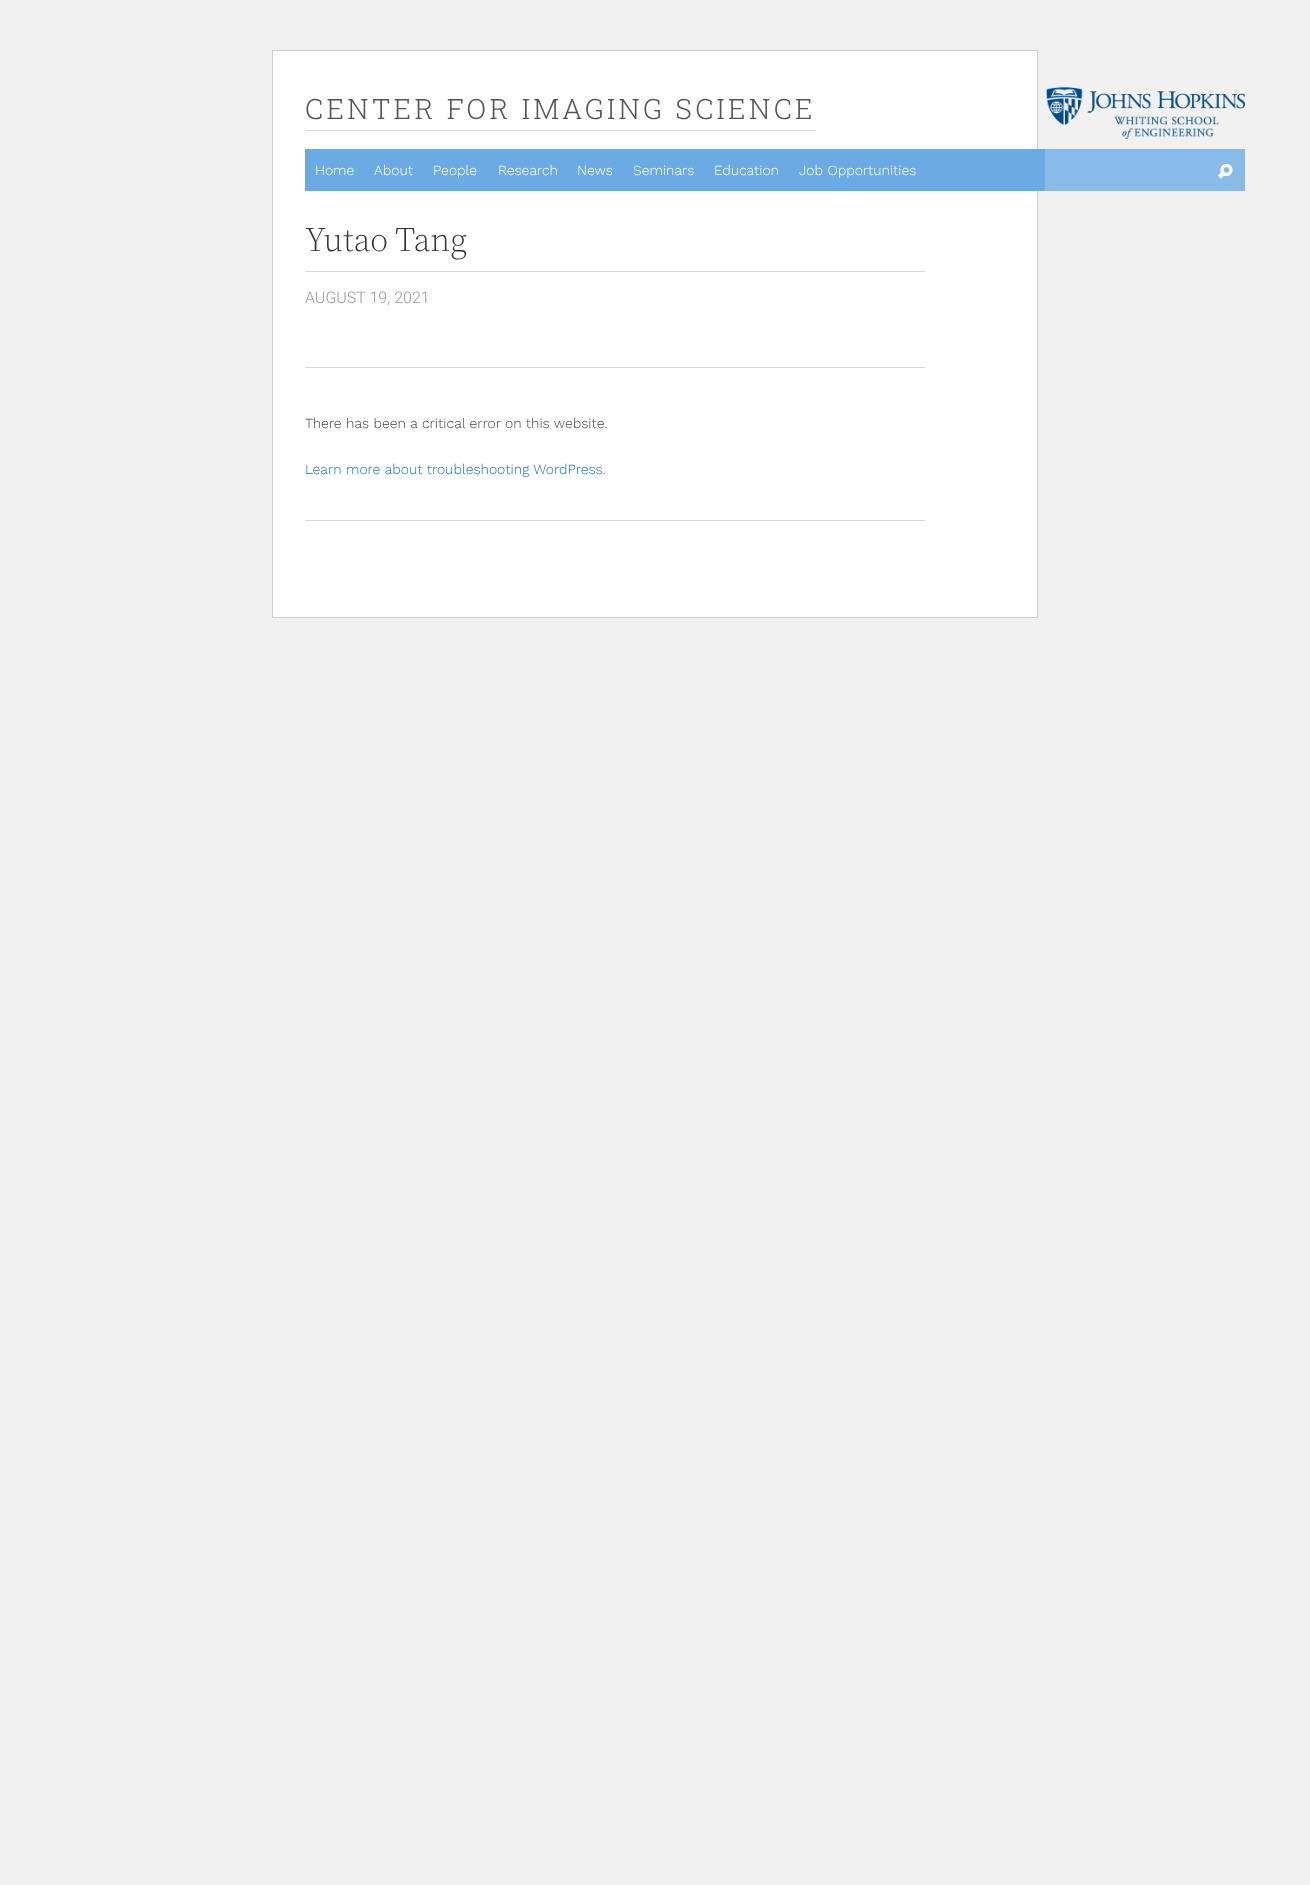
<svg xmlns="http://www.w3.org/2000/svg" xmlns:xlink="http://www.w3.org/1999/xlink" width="1310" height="1885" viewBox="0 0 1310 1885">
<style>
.cls-1{font:300 28px Roboto Slab;letter-spacing:3.35px;fill:#545454}
.cls-2{font:300 14px Work Sans;fill:#ffffff}
.cls-3{font:300 34px 'Source Serif 4';fill:#333333}
.cls-4{font:300 16px Roboto;fill:#999999}
.cls-5{font:300 14px Work Sans;fill:#444444}
.cls-6{font:300 14px Work Sans;fill:#2271b1}
</style>
<rect width="100%" height="100%" fill="#f1f1f1"/>
<rect fill="#ffffff" stroke="#ccd0d4" x="272.5" y="50.5" width="765" height="567"/>
<rect fill="#dadada" x="305" y="130" width="511" height="1"/>
<image xlink:href="image0.png" x="1046" y="87" width="199" height="52"/>
<rect fill="#6caae4" x="305" y="149" width="740" height="42"/>
<rect fill="#89bbe9" x="1045" y="149" width="200" height="42"/>
<image xlink:href="image1.png" x="1218" y="164" width="15" height="15"/>
<rect fill="#dadada" x="305" y="271" width="620" height="1"/>
<rect fill="#d8d8d8" x="305" y="367" width="620" height="1"/>
<rect fill="#d8d8d8" x="305" y="520" width="620" height="1"/>
<text class="cls-1" x="305" y="119">CENTER FOR IMAGING SCIENCE</text>
<text class="cls-2" x="315" y="175">Home</text>
<text class="cls-2" x="374" y="175">About</text>
<text class="cls-2" x="433" y="175">People</text>
<text class="cls-2" x="498" y="175">Research</text>
<text class="cls-2" x="577" y="175">News</text>
<text class="cls-2" x="633" y="175">Seminars</text>
<text class="cls-2" x="714" y="175">Education</text>
<text class="cls-2" x="799" y="175">Job Opportunities</text>
<text class="cls-3" x="305" y="251">Yutao Tang</text>
<text class="cls-4" x="305" y="303">AUGUST 19, 2021</text>
<text class="cls-5" x="305" y="428">There has been a critical error on this website.</text>
<text class="cls-6" x="305" y="474">Learn more about troubleshooting WordPress.</text>
</svg>
